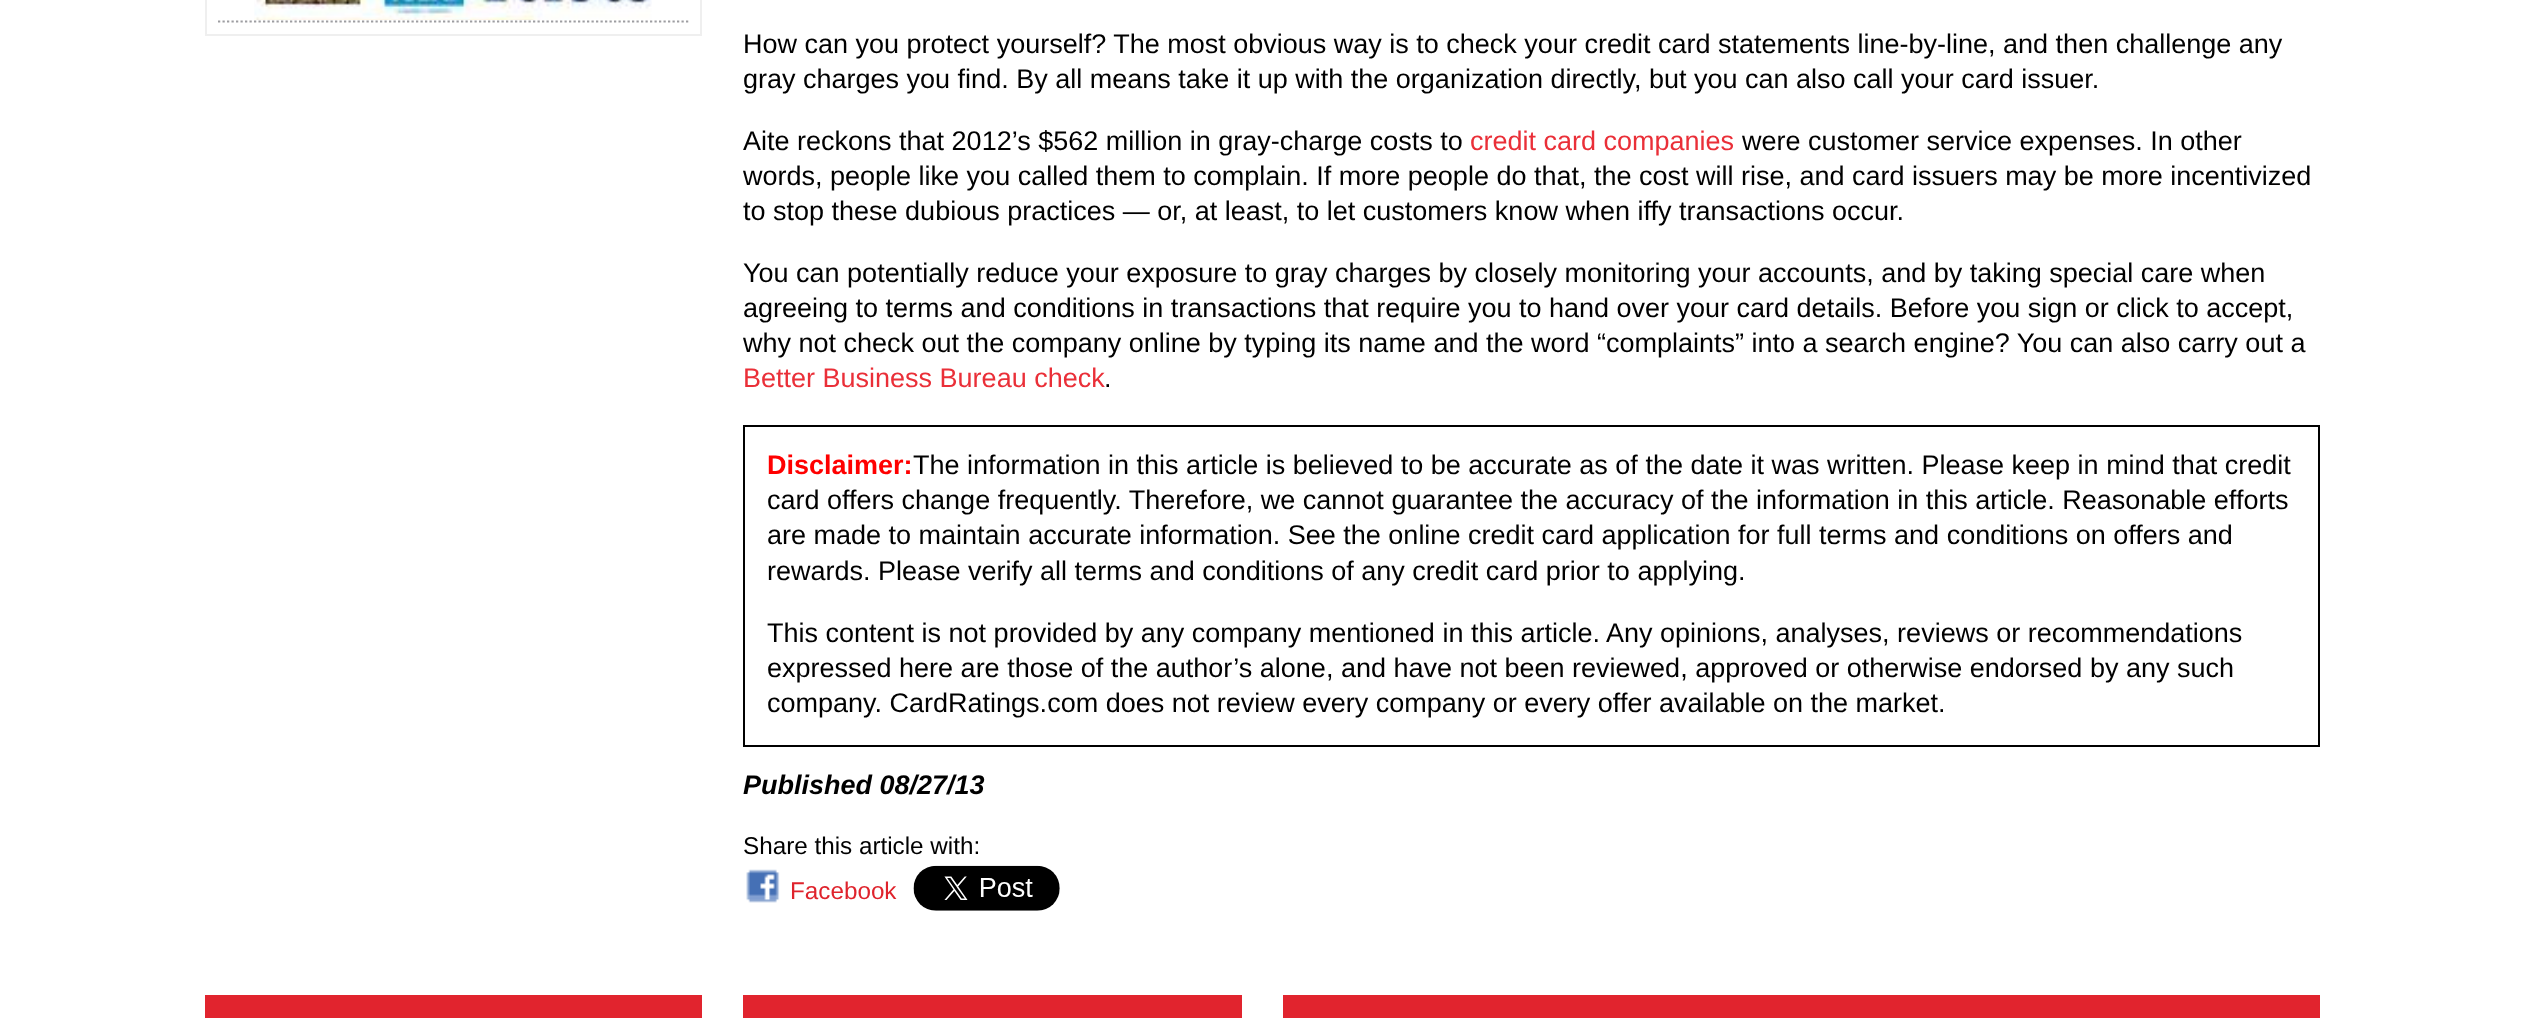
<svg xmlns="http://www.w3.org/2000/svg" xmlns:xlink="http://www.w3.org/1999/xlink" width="2522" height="1018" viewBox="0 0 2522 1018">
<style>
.cls-1{font:27px Liberation Sans;fill:#000000}
.cls-2{font:27px Liberation Sans;fill:#ea2f38}
.cls-3{font:bold 27px Liberation Sans;fill:#ff0000}
.cls-4{font:italic bold 27px Liberation Sans;fill:#000000}
.cls-5{font:24.25px Liberation Sans;fill:#000000}
.cls-6{font:24.25px Liberation Sans;fill:#df232c}
</style>
<rect width="100%" height="100%" fill="#ffffff"/>
<rect fill="none" stroke="#efefef" stroke-width="2" x="206" y="-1" width="495" height="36"/>
<path fill="none" stroke="#9d9da1" stroke-width="2.2" stroke-dasharray="2.25 2.25" d="M218 21.5H688.5"/>
<image xlink:href="image0.png" x="254" y="0" width="398" height="20"/>
<rect fill="none" stroke="#000000" stroke-width="2" x="744" y="426" width="1575" height="320"/>
<image xlink:href="image1.png" x="746" y="869" width="34" height="34"/>
<image xlink:href="image2.png" x="913" y="865" width="147" height="46"/>
<rect fill="#e1242e" x="205" y="995" width="497" height="23"/>
<rect fill="#e1242e" x="743" y="995" width="499" height="23"/>
<rect fill="#e1242e" x="1283" y="995" width="1037" height="23"/>
<text class="cls-1"><tspan x="743" y="53">How can you protect yourself? The most obvious way is to check your credit card statements line-by-line, and then challenge any</tspan><tspan x="743" y="88">gray charges you find. By all means take it up with the organization directly, but you can also call your card issuer.</tspan></text>
<text class="cls-1" x="743" y="150">Aite reckons that 2012’s $562 million in gray-charge costs to</text>
<text class="cls-2" x="1470" y="150">credit card companies</text>
<text class="cls-1" x="1742" y="150">were customer service expenses. In other</text>
<text class="cls-1"><tspan x="743" y="185">words, people like you called them to complain. If more people do that, the cost will rise, and card issuers may be more incentivized</tspan><tspan x="743" y="220">to stop these dubious practices — or, at least, to let customers know when iffy transactions occur.</tspan></text>
<text class="cls-1"><tspan x="743" y="282">You can potentially reduce your exposure to gray charges by closely monitoring your accounts, and by taking special care when</tspan><tspan x="743" y="317">agreeing to terms and conditions in transactions that require you to hand over your card details. Before you sign or click to accept,</tspan><tspan x="743" y="352">why not check out the company online by typing its name and the word “complaints” into a search engine? You can also carry out a</tspan></text>
<text class="cls-2" x="743" y="387">Better Business Bureau check</text>
<text class="cls-1" x="1104" y="387">.</text>
<text class="cls-3" x="767" y="474">Disclaimer:</text>
<text class="cls-1" x="913" y="474">The information in this article is believed to be accurate as of the date it was written. Please keep in mind that credit</text>
<text class="cls-1"><tspan x="767" y="509">card offers change frequently. Therefore, we cannot guarantee the accuracy of the information in this article. Reasonable efforts</tspan><tspan x="767" y="544">are made to maintain accurate information. See the online credit card application for full terms and conditions on offers and</tspan><tspan x="767" y="580">rewards. Please verify all terms and conditions of any credit card prior to applying.</tspan></text>
<text class="cls-1"><tspan x="767" y="642">This content is not provided by any company mentioned in this article. Any opinions, analyses, reviews or recommendations</tspan><tspan x="767" y="677">expressed here are those of the author’s alone, and have not been reviewed, approved or otherwise endorsed by any such</tspan><tspan x="767" y="712">company. CardRatings.com does not review every company or every offer available on the market.</tspan></text>
<text class="cls-4" x="743" y="794">Published 08/27/13</text>
<text class="cls-5" x="743" y="854">Share this article with:</text>
<text class="cls-6" x="790" y="899">Facebook</text>
</svg>
